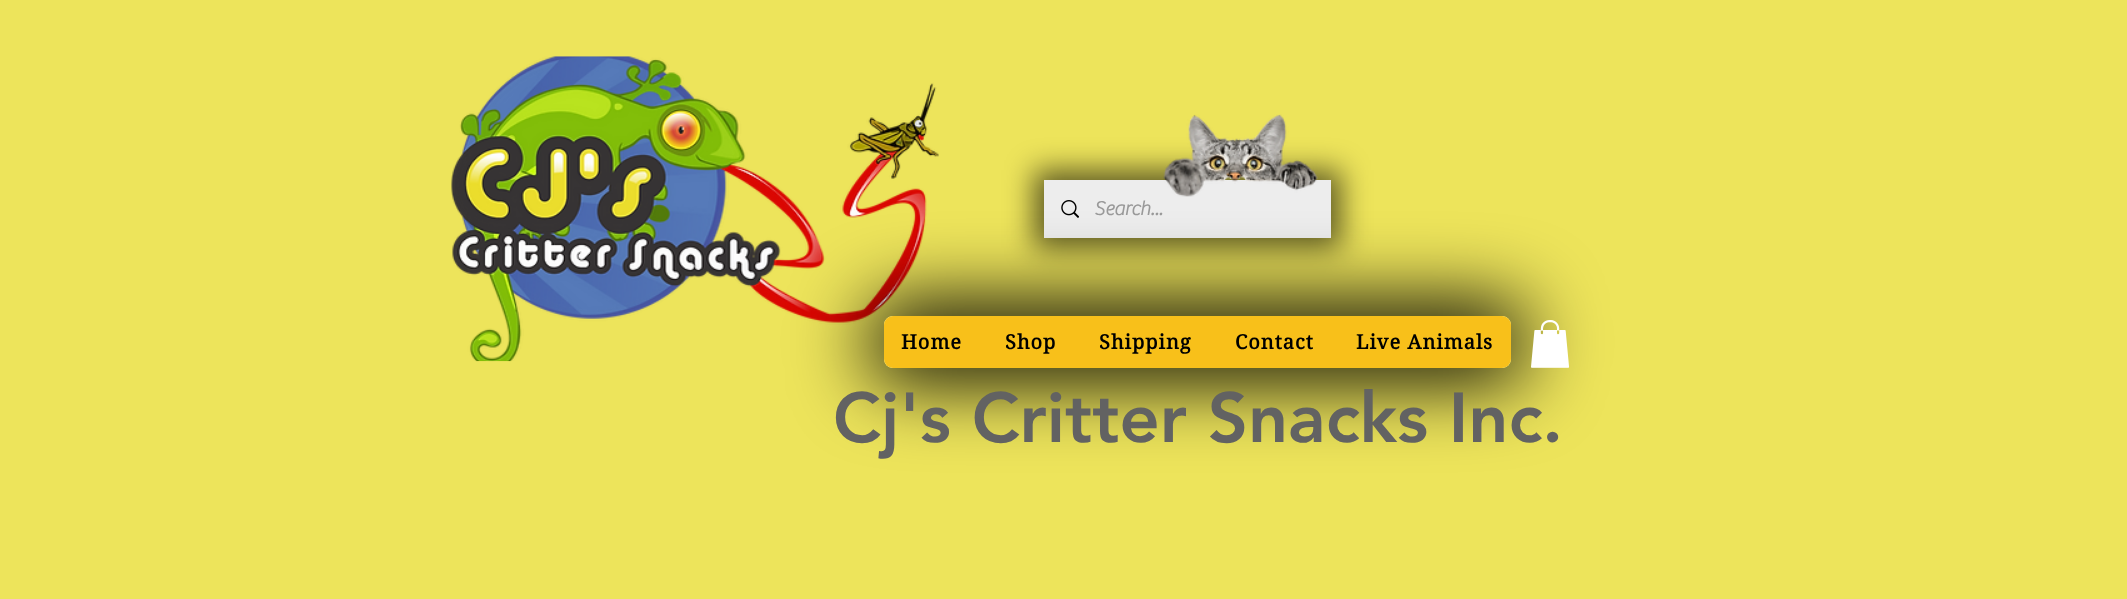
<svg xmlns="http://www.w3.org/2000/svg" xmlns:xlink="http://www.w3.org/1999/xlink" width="2127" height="599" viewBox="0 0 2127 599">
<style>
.cls-1{font:bold 20px 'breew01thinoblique';fill:#999999}
.cls-2{font:bold 20px 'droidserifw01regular';letter-spacing:1px;fill:#000000}
.cls-3{font:900 70px 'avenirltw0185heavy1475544';fill:#626262}
</style>
<defs>
<clipPath id="clip1"><path d="M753 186H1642V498H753ZM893 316H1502C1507 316 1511 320 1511 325V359C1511 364 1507 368 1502 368H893C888 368 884 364 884 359V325C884 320 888 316 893 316Z" clip-rule="evenodd"/></clipPath>
</defs>
<rect width="100%" height="100%" fill="#ede45b"/>
<image xlink:href="image0.png" x="451" y="56" width="488" height="306"/>
<rect fill="#000000" fill-opacity="0.6" filter="blur(14.5px)" x="1034" y="170" width="307" height="78"/>
<rect fill="#ededed" x="1044" y="180" width="287" height="58"/>
<image xlink:href="image1.png" x="1163" y="114" width="155" height="83"/>
<image xlink:href="image2.png" x="1061" y="200" width="18" height="18"/>
<g clip-path="url(#clip1)">
<rect fill="#000000" filter="blur(39px)" x="871" y="304" width="653" height="76" rx="21"/>
</g>
<rect fill="#ffffff" fill-opacity="0.54" x="884" y="316" width="627" height="52" rx="9"/>
<rect fill="#f8b701" fill-opacity="0.86" x="884" y="316" width="627" height="52" rx="9"/>
<image xlink:href="image3.png" x="1531" y="320" width="39" height="48"/>
<text class="cls-1" x="1094" y="215">Search...</text>
<text class="cls-2" x="901" y="349">Home</text>
<text class="cls-2" x="1005" y="349">Shop</text>
<text class="cls-2" x="1099" y="349">Shipping</text>
<text class="cls-2" x="1235" y="349">Contact</text>
<text class="cls-2" x="1356" y="349">Live Animals</text>
<text class="cls-3" x="833" y="442">Cj's Critter Snacks Inc.</text>
</svg>
